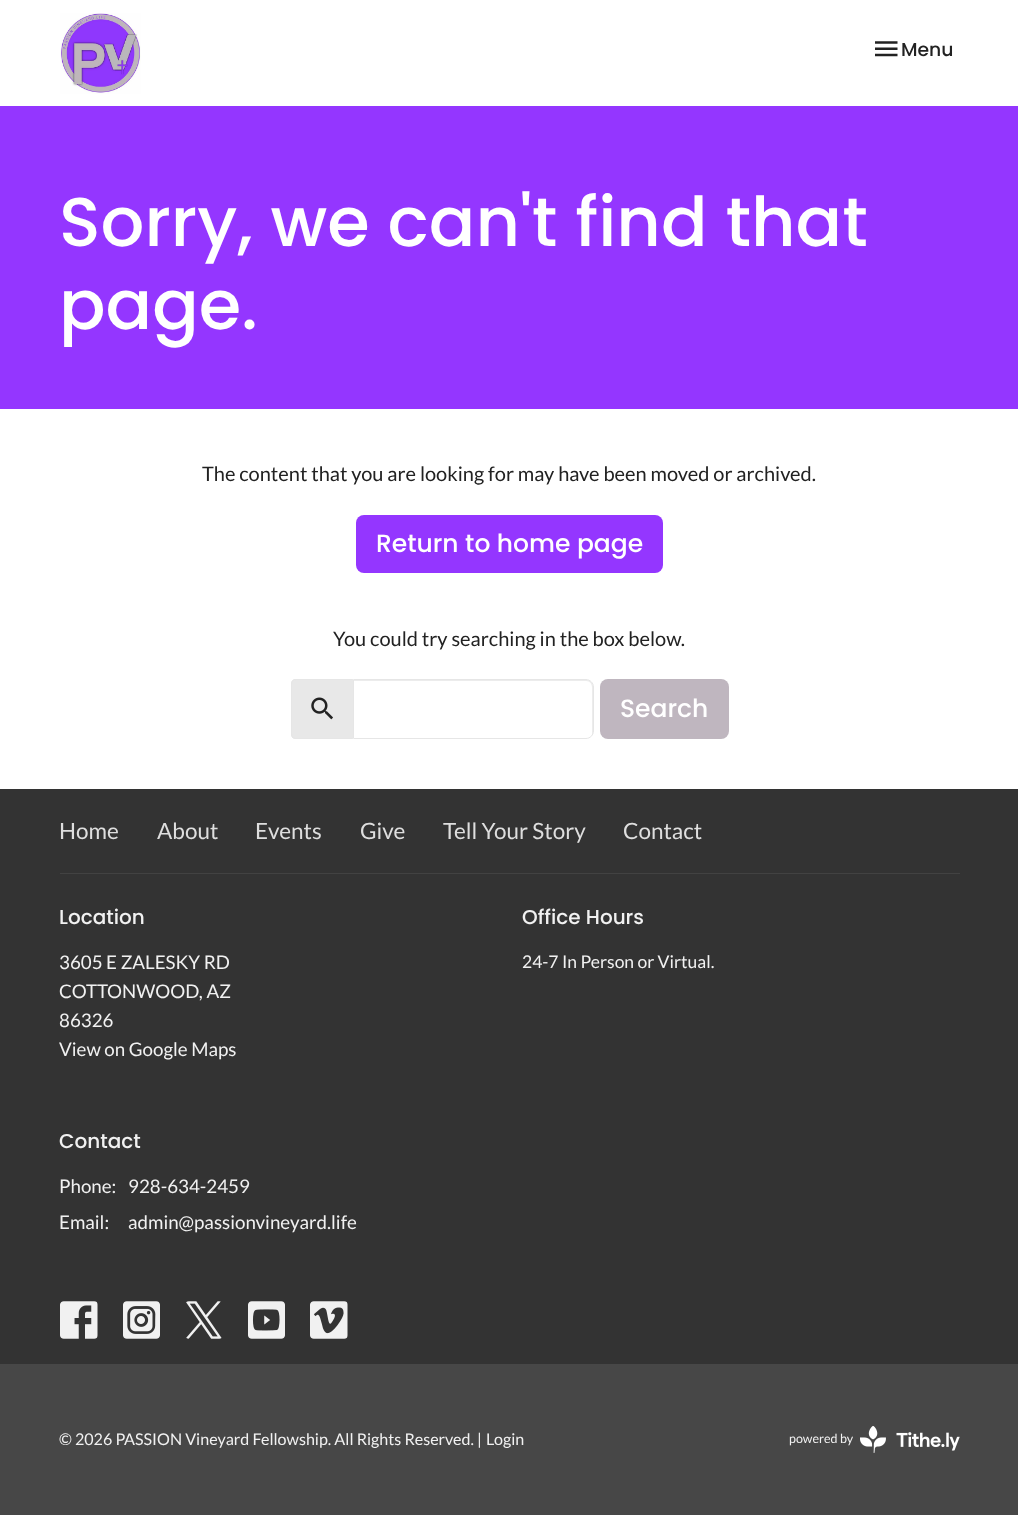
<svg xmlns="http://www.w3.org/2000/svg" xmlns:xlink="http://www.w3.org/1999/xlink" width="1018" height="1522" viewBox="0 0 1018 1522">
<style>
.cls-1{font:500 18.75px Poppins;fill:#222222}
.cls-2{font:500 68.75px Poppins;fill:#ffffff}
.cls-3{font:20px Lato;fill:#222222}
.cls-4{font:500 25px Poppins;fill:#ffffff}
.cls-5{font:22.5px Lato;fill:#dedede}
.cls-6{font:500 20px Poppins;fill:#f1f1f1}
.cls-7{font:18.75px Lato;fill:#f1f1f1}
.cls-8{font:17.5px Lato;fill:#f1f1f1}
.cls-9{font:16.1px Lato;fill:#f1f1f1}
.cls-10{font:12.5px Lato;fill:#f1f1f1}
</style>
<rect width="100%" height="100%" fill="#ffffff"/>
<image xlink:href="image0.png" x="60" y="13" width="81" height="81"/>
<image xlink:href="image1.png" x="875" y="41" width="23" height="16"/>
<rect fill="#9436ff" x="0" y="106" width="1018" height="303"/>
<rect fill="#9436ff" x="356" y="515" width="307" height="58" rx="8"/>
<path fill="#e8e8e8" d="M296 679H353V739H296C293 739 291 737 291 734V684C291 681 293 679 296 679Z"/>
<path fill="#e6e6e6" fill-rule="evenodd" d="M296 679H352V739H296C293 739 291 737 291 734V684C291 681 293 679 296 679ZM296 680H352V738H296C294 738 292 736 292 734V684C292 682 294 680 296 680Z"/>
<image xlink:href="image2.png" x="311" y="697" width="22" height="23"/>
<path fill="#ececec" d="M354 681H586C590 681 592 684 592 688V732C592 734 592 735 591 737C592 736 593 734 593 732V686C593 683 590 680 587 680H354Z"/>
<path fill="none" stroke="#e6e6e6" d="M353.5 679.5H586C590 679.5 593.5 683 593.5 687V731C593.5 735 590 738.5 586 738.5H353.5Z"/>
<rect fill="#bfb6bf" x="600" y="679" width="129" height="60" rx="8"/>
<rect fill="#333333" x="0" y="789" width="1018" height="575"/>
<rect fill="#424242" x="60" y="873" width="900" height="1"/>
<image xlink:href="image3.png" x="60" y="1301" width="38" height="38"/>
<image xlink:href="image4.png" x="123" y="1301" width="37" height="38"/>
<image xlink:href="image5.png" x="186" y="1301" width="36" height="38"/>
<image xlink:href="image6.png" x="248" y="1301" width="37" height="38"/>
<image xlink:href="image7.png" x="310" y="1301" width="38" height="38"/>
<rect fill="#474747" x="0" y="1364" width="1018" height="151"/>
<image xlink:href="image8.png" x="860" y="1426" width="100" height="27"/>
<text class="cls-1" x="901" y="56">Menu</text>
<text class="cls-2"><tspan x="59" y="246">Sorry, we can't find that</tspan><tspan x="59" y="329">page.</tspan></text>
<text class="cls-3" x="202" y="481">The content that you are looking for may have been moved or archived.</text>
<text class="cls-4" x="376" y="552">Return to home page</text>
<text class="cls-3" x="333" y="646">You could try searching in the box below.</text>
<text class="cls-4" x="620" y="717">Search</text>
<text class="cls-5" x="59" y="839">Home</text>
<text class="cls-5" x="157" y="839">About</text>
<text class="cls-5" x="255" y="839">Events</text>
<text class="cls-5" x="360" y="839">Give</text>
<text class="cls-5" x="443" y="839">Tell Your Story</text>
<text class="cls-5" x="623" y="839">Contact</text>
<text class="cls-6" x="59" y="924">Location</text>
<text class="cls-7"><tspan x="59" y="969">3605 E ZALESKY RD</tspan><tspan x="59" y="998">COTTONWOOD, AZ</tspan><tspan x="59" y="1027">86326</tspan><tspan x="59" y="1056">View on Google Maps</tspan></text>
<text class="cls-6" x="522" y="924">Office Hours</text>
<text class="cls-8" x="522" y="968">24-7 In Person or Virtual.</text>
<text class="cls-6" x="59" y="1148">Contact</text>
<text class="cls-7" x="59" y="1193">Phone:</text>
<text class="cls-7" x="128" y="1193">928-634-2459</text>
<text class="cls-7" x="59" y="1229">Email:</text>
<text class="cls-7" x="128" y="1229">admin@passionvineyard.life</text>
<text class="cls-9" x="59" y="1445">© 2026 PASSION Vineyard Fellowship. All Rights Reserved. |</text>
<text class="cls-9" x="486" y="1445">Login</text>
<text class="cls-10" x="789" y="1443">powered by</text>
</svg>
